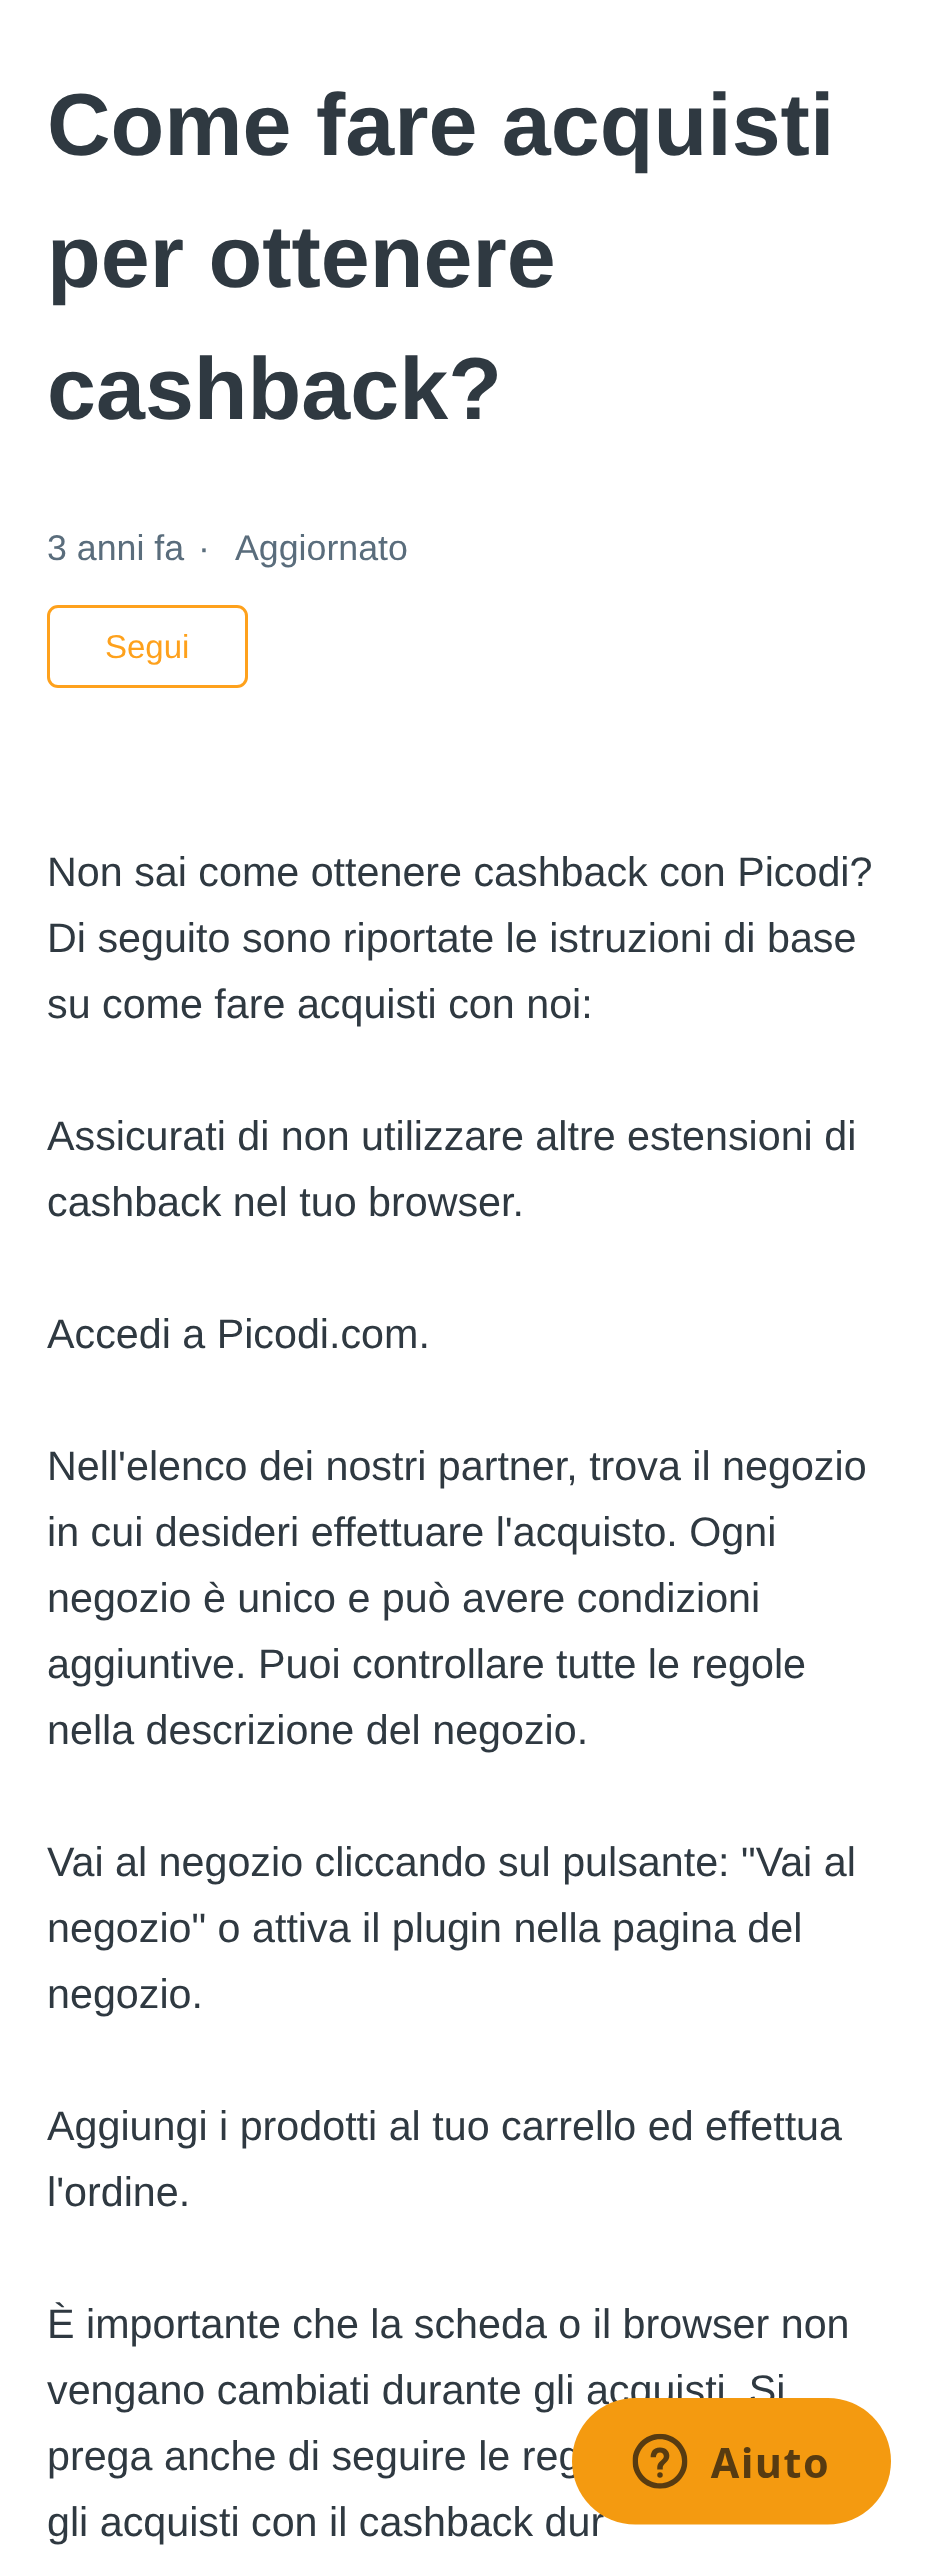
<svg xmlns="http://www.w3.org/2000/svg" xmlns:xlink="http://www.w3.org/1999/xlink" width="945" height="2561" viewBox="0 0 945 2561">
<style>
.cls-1{font:bold 88px Liberation Sans;fill:#2f3941}
.cls-2{font:35.75px Liberation Sans;fill:#5a6d7c}
.cls-3{font:33px Liberation Sans;fill:#fea11c}
.cls-4{font:41.25px Liberation Sans;fill:#2f3941}
</style>
<rect width="100%" height="100%" fill="#ffffff"/>
<rect fill="none" stroke="#fea11c" stroke-width="3" x="48.5" y="606.5" width="198" height="80" rx="9.5"/>
<text class="cls-1"><tspan x="47" y="155">Come fare acquisti</tspan><tspan x="47" y="287">per ottenere</tspan><tspan x="47" y="419">cashback?</tspan></text>
<text class="cls-2" x="47" y="560">3 anni fa</text>
<text class="cls-2" x="198" y="560">·</text>
<text class="cls-2" x="235" y="560">Aggiornato</text>
<text class="cls-3" x="105" y="658">Segui</text>
<text class="cls-4"><tspan x="47" y="886">Non sai come ottenere cashback con Picodi?</tspan><tspan x="47" y="952">Di seguito sono riportate le istruzioni di base</tspan><tspan x="47" y="1018">su come fare acquisti con noi:</tspan></text>
<text class="cls-4"><tspan x="47" y="1150">Assicurati di non utilizzare altre estensioni di</tspan><tspan x="47" y="1216">cashback nel tuo browser.</tspan></text>
<text class="cls-4" x="47" y="1348">Accedi a Picodi.com.</text>
<text class="cls-4"><tspan x="47" y="1480">Nell'elenco dei nostri partner, trova il negozio</tspan><tspan x="47" y="1546">in cui desideri effettuare l'acquisto. Ogni</tspan><tspan x="47" y="1612">negozio è unico e può avere condizioni</tspan><tspan x="47" y="1678">aggiuntive. Puoi controllare tutte le regole</tspan><tspan x="47" y="1744">nella descrizione del negozio.</tspan></text>
<text class="cls-4"><tspan x="47" y="1876">Vai al negozio cliccando sul pulsante: "Vai al</tspan><tspan x="47" y="1942">negozio" o attiva il plugin nella pagina del</tspan><tspan x="47" y="2008">negozio.</tspan></text>
<text class="cls-4"><tspan x="47" y="2140">Aggiungi i prodotti al tuo carrello ed effettua</tspan><tspan x="47" y="2206">l'ordine.</tspan></text>
<text class="cls-4"><tspan x="47" y="2338">È importante che la scheda o il browser non</tspan><tspan x="47" y="2404">vengano cambiati durante gli acquisti. Si</tspan><tspan x="47" y="2470">prega anche di seguire le reg</tspan><tspan x="47" y="2536">gli acquisti con il cashback dur</tspan></text>
<image xlink:href="image0.png" x="572" y="2398" width="319" height="127"/>
</svg>
